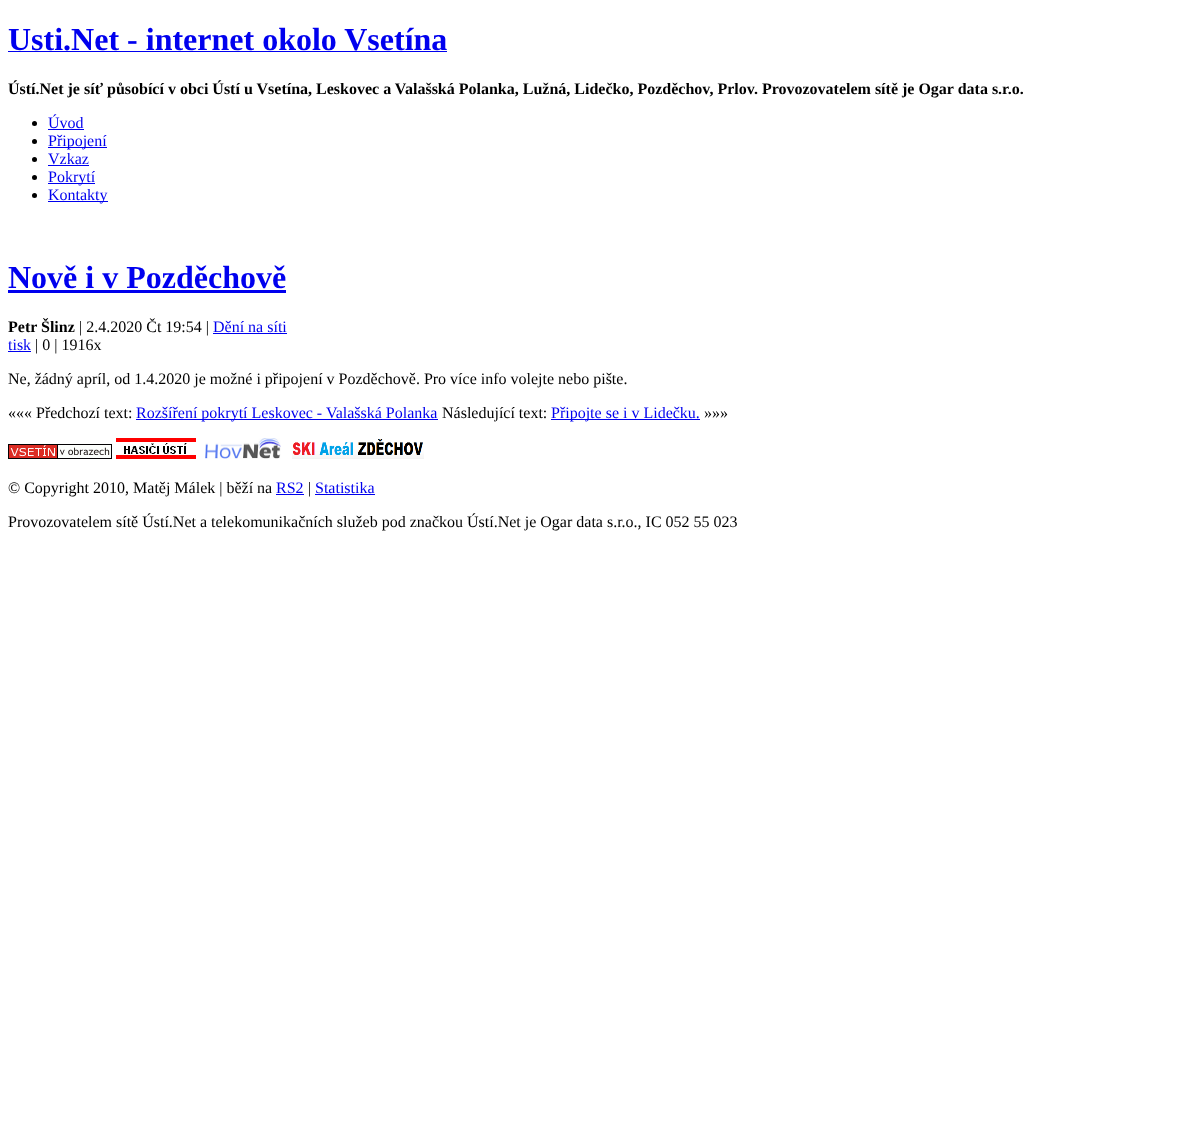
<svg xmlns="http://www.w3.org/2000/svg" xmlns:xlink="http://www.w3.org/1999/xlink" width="1182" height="1138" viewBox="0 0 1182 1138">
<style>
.cls-1{font:bold 32px Liberation Serif;fill:#0000ee}
.cls-2{font:bold 16px Liberation Serif;fill:#000000}
.cls-3{font:16px Liberation Serif;fill:#0000ee}
.cls-4{font:16px Liberation Serif;fill:#000000}
</style>
<rect width="100%" height="100%" fill="#ffffff"/>
<rect fill="#0000ee" x="8" y="51" width="439" height="1"/>
<circle fill="#000000" cx="34.5" cy="123.5" r="2.5"/>
<rect fill="#0000ee" x="48" y="129" width="36" height="1"/>
<circle fill="#000000" cx="34.5" cy="141.5" r="2.5"/>
<rect fill="#0000ee" x="48" y="147" width="59" height="1"/>
<circle fill="#000000" cx="34.5" cy="159.5" r="2.5"/>
<rect fill="#0000ee" x="48" y="165" width="41" height="1"/>
<circle fill="#000000" cx="34.5" cy="177.5" r="2.5"/>
<rect fill="#0000ee" x="48" y="183" width="47" height="1"/>
<circle fill="#000000" cx="34.5" cy="195.5" r="2.5"/>
<rect fill="#0000ee" x="48" y="201" width="60" height="1"/>
<rect fill="#0000ee" x="8" y="290" width="278" height="3"/>
<rect fill="#0000ee" x="213" y="333" width="74" height="1"/>
<rect fill="#0000ee" x="8" y="351" width="23" height="1"/>
<rect fill="#0000ee" x="136" y="419" width="302" height="1"/>
<rect fill="#0000ee" x="551" y="419" width="149" height="1"/>
<image xlink:href="image0.png" x="8" y="444" width="104" height="15"/>
<image xlink:href="image1.png" x="116" y="438" width="80" height="21"/>
<image xlink:href="image2.png" x="205" y="438" width="76" height="21"/>
<image xlink:href="image3.png" x="292" y="439" width="132" height="20"/>
<rect fill="#0000ee" x="276" y="494" width="28" height="1"/>
<rect fill="#0000ee" x="315" y="494" width="60" height="1"/>
<text class="cls-1" x="8" y="50">Usti.Net - internet okolo Vsetína</text>
<text class="cls-2" x="8" y="94">Ústí.Net je síť působící v obci Ústí u Vsetína, Leskovec a Valašská Polanka, Lužná, Lidečko, Pozděchov, Prlov. Provozovatelem sítě je Ogar data s.r.o.</text>
<text class="cls-3"><tspan x="48" y="128">Úvod</tspan><tspan x="48" y="146">Připojení</tspan><tspan x="48" y="164">Vzkaz</tspan><tspan x="48" y="182">Pokrytí</tspan><tspan x="48" y="200">Kontakty</tspan></text>
<text class="cls-1" x="8" y="288">Nově i v Pozděchově</text>
<text class="cls-2" x="8" y="332">Petr Šlinz</text>
<text class="cls-4" x="79" y="332">| 2.4.2020 Čt 19:54 |</text>
<text class="cls-3" x="213" y="332">Dění na síti</text>
<text class="cls-3" x="8" y="350">tisk</text>
<text class="cls-4" x="35" y="350">| 0 | 1916x</text>
<text class="cls-4" x="8" y="384">Ne, žádný apríl, od 1.4.2020 je možné i připojení v Pozděchově. Pro více info volejte nebo pište.</text>
<text class="cls-4" x="8" y="418">««« Předchozí text:</text>
<text class="cls-3" x="136" y="418">Rozšíření pokrytí Leskovec - Valašská Polanka</text>
<text class="cls-4" x="442" y="418">Následující text:</text>
<text class="cls-3" x="551" y="418">Připojte se i v Lidečku.</text>
<text class="cls-4" x="704" y="418">»»»</text>
<text class="cls-4" x="8" y="493">© Copyright 2010, Matěj Málek | běží na</text>
<text class="cls-3" x="276" y="493">RS2</text>
<text class="cls-4" x="308" y="493">|</text>
<text class="cls-3" x="315" y="493">Statistika</text>
<text class="cls-4" x="8" y="527">Provozovatelem sítě Ústí.Net a telekomunikačních služeb pod značkou Ústí.Net je Ogar data s.r.o., IC 052 55 023</text>
</svg>
